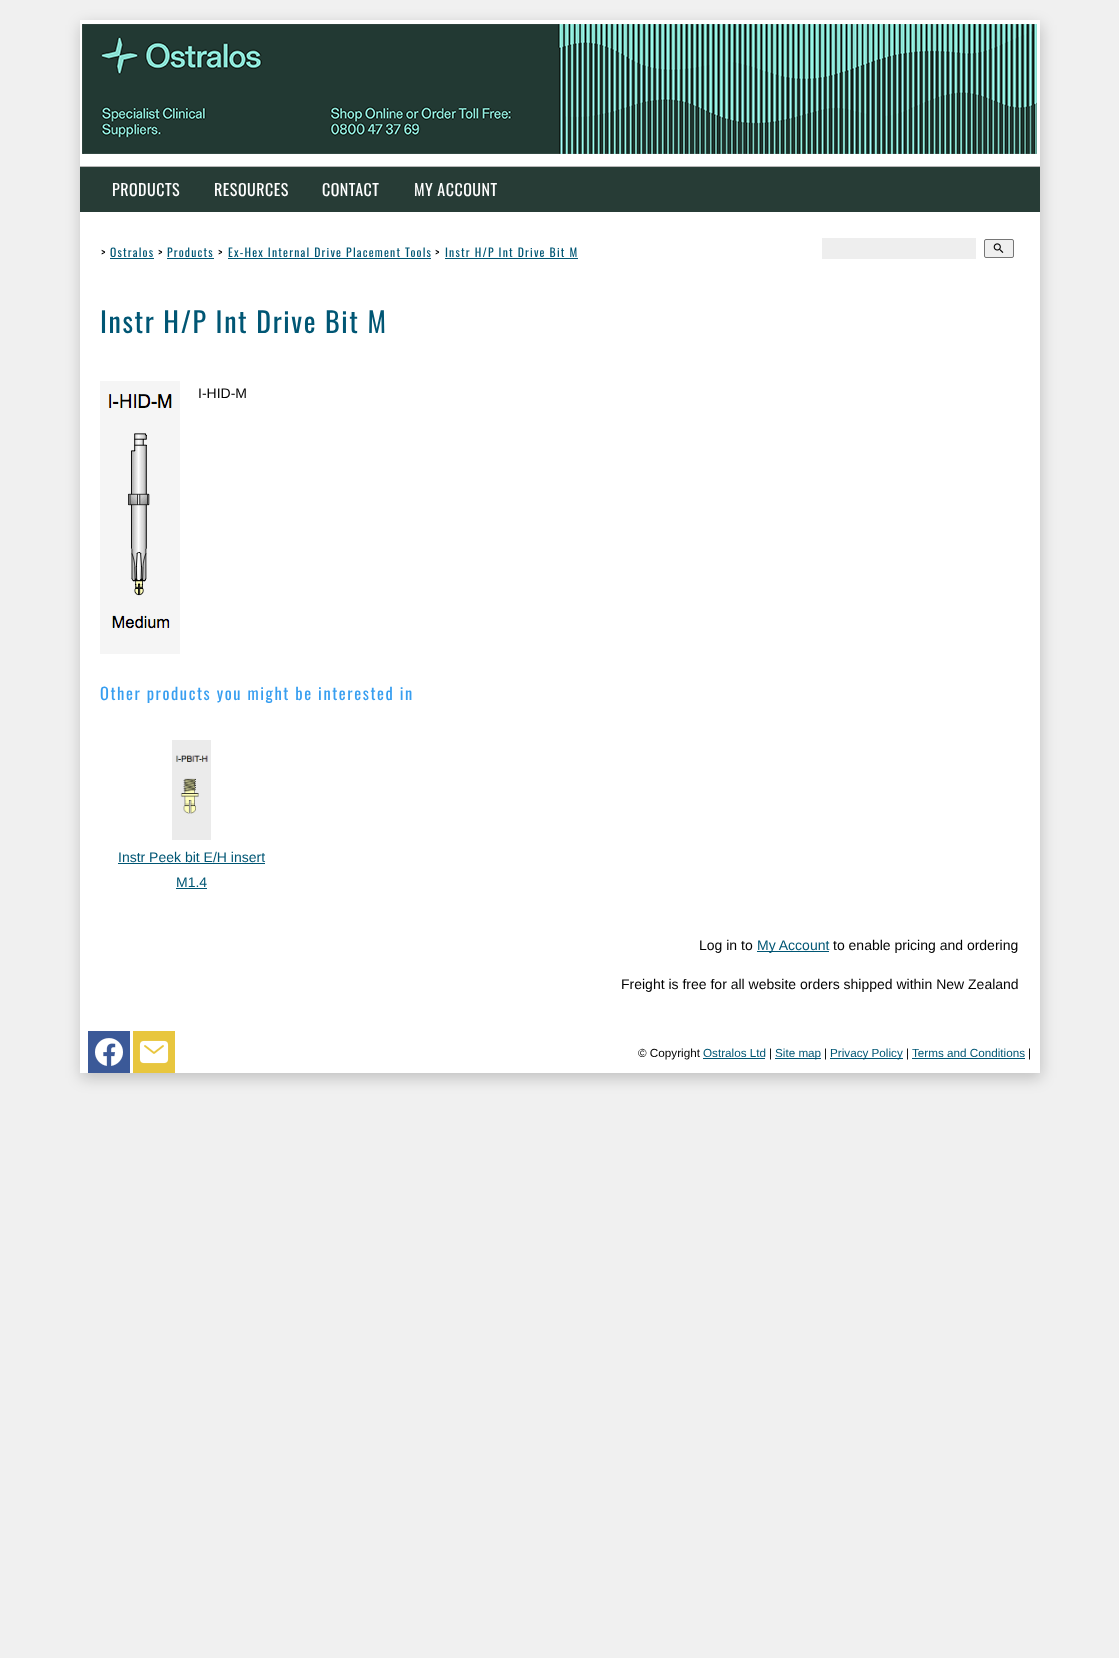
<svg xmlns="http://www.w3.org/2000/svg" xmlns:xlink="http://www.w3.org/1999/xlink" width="1119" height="1658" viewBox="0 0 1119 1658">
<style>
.cls-1{font:16px Oswald;letter-spacing:0.5px;fill:#ffffff}
.cls-2{font:11.7px Oswald;letter-spacing:1.2px;fill:#000000}
.cls-3{font:11.7px Oswald;letter-spacing:1.2px;fill:#005674}
.cls-4{font:28px Oswald;letter-spacing:1.6px;fill:#005674}
.cls-5{font:14px Liberation Sans;fill:#000000}
.cls-6{font:16.4px Oswald;letter-spacing:1.6px;fill:#379ef0}
.cls-7{font:14px Liberation Sans;fill:#005674}
.cls-8{font:11.7px Liberation Sans;fill:#000000}
.cls-9{font:11.7px Liberation Sans;fill:#005674}
</style>
<rect width="100%" height="100%" fill="#f0f0f0"/>
<rect fill="#000000" fill-opacity="0.2" filter="blur(7.5px)" x="81" y="25" width="960" height="1053"/>
<rect fill="#ffffff" x="80" y="20" width="960" height="1053"/>
<image xlink:href="image0.png" x="82" y="24" width="955" height="130"/>
<rect fill="#b8b8b8" x="80" y="166" width="960" height="1"/>
<rect fill="#273c36" x="80" y="167" width="960" height="45"/>
<rect fill="#005674" x="110" y="258" width="44" height="1"/>
<rect fill="#005674" x="167" y="258" width="47" height="1"/>
<rect fill="#005674" x="228" y="258" width="203" height="1"/>
<rect fill="#005674" x="445" y="258" width="133" height="1"/>
<rect fill="#eeeeee" x="822" y="238" width="154" height="21"/>
<rect fill="#efefef" stroke="#767676" x="984.5" y="239.5" width="29" height="18" rx="1.5"/>
<image xlink:href="image1.png" x="993" y="243" width="11" height="10"/>
<image xlink:href="image2.png" x="100" y="381" width="80" height="273"/>
<image xlink:href="image3.png" x="172" y="740" width="39" height="100"/>
<rect fill="#005674" x="118" y="863" width="147" height="1"/>
<rect fill="#005674" x="176" y="888" width="31" height="1"/>
<rect fill="#005674" x="757" y="951" width="72" height="1"/>
<rect fill="#3b5998" x="88" y="1031" width="42" height="42"/>
<image xlink:href="image4.png" x="95" y="1038" width="28" height="28"/>
<rect fill="#e8c63e" x="133" y="1031" width="42" height="42"/>
<image xlink:href="image5.png" x="139" y="1040" width="30" height="24"/>
<rect fill="#005674" x="703" y="1058" width="62" height="1"/>
<rect fill="#005674" x="775" y="1058" width="46" height="1"/>
<rect fill="#005674" x="830" y="1058" width="73" height="1"/>
<rect fill="#005674" x="912" y="1058" width="113" height="1"/>
<text class="cls-1" x="112" y="196">PRODUCTS</text>
<text class="cls-1" x="214" y="196">RESOURCES</text>
<text class="cls-1" x="322" y="196">CONTACT</text>
<text class="cls-1" x="414" y="196">MY ACCOUNT</text>
<text class="cls-2" x="101" y="257">&gt;</text>
<text class="cls-3" x="110" y="257">Ostralos</text>
<text class="cls-2" x="158" y="257">&gt;</text>
<text class="cls-3" x="167" y="257">Products</text>
<text class="cls-2" x="218" y="257">&gt;</text>
<text class="cls-3" x="228" y="257">Ex-Hex Internal Drive Placement Tools</text>
<text class="cls-2" x="435" y="257">&gt;</text>
<text class="cls-3" x="445" y="257">Instr H/P Int Drive Bit M</text>
<text class="cls-4" x="100" y="333">Instr H/P Int Drive Bit M</text>
<text class="cls-5" x="198" y="398">I-HID-M</text>
<text class="cls-6" x="100" y="700">Other products you might be interested in</text>
<text class="cls-7" x="118" y="862">Instr Peek bit E/H insert</text>
<text class="cls-7" x="176" y="887">M1.4</text>
<text class="cls-5" x="699" y="950">Log in to</text>
<text class="cls-7" x="757" y="950">My Account</text>
<text class="cls-5" x="833" y="950">to enable pricing and ordering</text>
<text class="cls-5" x="621" y="989">Freight is free for all website orders shipped within New Zealand</text>
<text class="cls-8" x="638" y="1057">© Copyright</text>
<text class="cls-9" x="703" y="1057">Ostralos Ltd</text>
<text class="cls-8" x="769" y="1057">|</text>
<text class="cls-9" x="775" y="1057">Site map</text>
<text class="cls-8" x="824" y="1057">|</text>
<text class="cls-9" x="830" y="1057">Privacy Policy</text>
<text class="cls-8" x="906" y="1057">|</text>
<text class="cls-9" x="912" y="1057">Terms and Conditions</text>
<text class="cls-8" x="1028" y="1057">|</text>
</svg>
